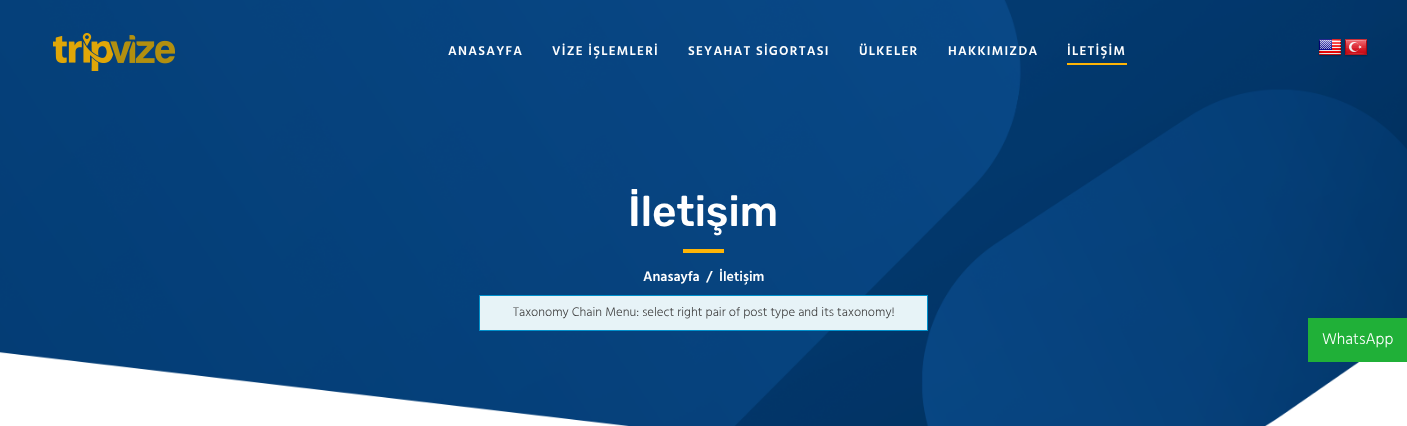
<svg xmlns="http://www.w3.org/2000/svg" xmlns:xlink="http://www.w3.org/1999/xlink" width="1407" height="426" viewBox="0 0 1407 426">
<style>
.cls-1{font:600 13px Hind;letter-spacing:1.25px;fill:#ffffff}
.cls-2{font:500 42.5px Rubik;fill:#ffffff}
.cls-3{font:600 14px Hind;fill:#ffffff}
.cls-4{font:300 12.8px Hind;fill:#404040}
.cls-5{font:300 16px Hind;fill:#ffffff}
</style>
<defs>
<clipPath id="clip1"><rect x="628" y="189" width="151" height="51"/></clipPath>
</defs>
<rect width="100%" height="100%" fill="#ffffff"/>
<image xlink:href="image0.png" x="0" y="0" width="1407" height="426"/>
<image xlink:href="image1.png" x="53" y="33" width="122" height="38"/>
<rect fill="#ffb506" x="1067" y="63" width="60" height="2"/>
<image xlink:href="image2.png" x="1318" y="39" width="24" height="18"/>
<image xlink:href="image3.png" x="1344" y="39" width="24" height="18"/>
<rect fill="#ffb506" x="683" y="249" width="41" height="4"/>
<rect fill="#e7f3f7" stroke="#0090cb" x="479.5" y="295.5" width="448" height="35"/>
<rect fill="#20b038" x="1308" y="318" width="99" height="44"/>
<text class="cls-1" x="448" y="55">ANASAYFA</text>
<text class="cls-1" x="552" y="55">VİZE İŞLEMLERİ</text>
<text class="cls-1" x="688" y="55">SEYAHAT SİGORTASI</text>
<text class="cls-1" x="859" y="55">ÜLKELER</text>
<text class="cls-1" x="948" y="55">HAKKIMIZDA</text>
<text class="cls-1" x="1067" y="55">İLETİŞİM</text>
<g clip-path="url(#clip1)">
<text class="cls-2" x="628" y="226">İletişim</text>
</g>
<text class="cls-3" x="643" y="281">Anasayfa</text>
<text class="cls-3" x="706" y="281">/</text>
<text class="cls-3" x="719" y="281">İletişim</text>
<text class="cls-4" x="513" y="316">Taxonomy Chain Menu: select right pair of post type and its taxonomy!</text>
<text class="cls-5" x="1322" y="344">WhatsApp</text>
</svg>
